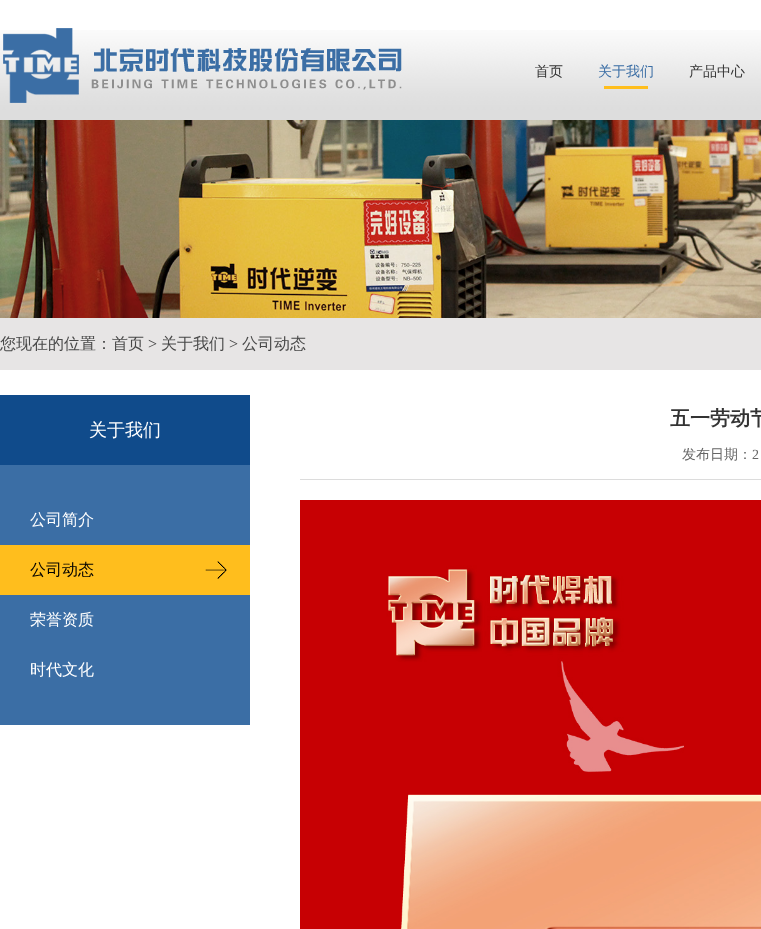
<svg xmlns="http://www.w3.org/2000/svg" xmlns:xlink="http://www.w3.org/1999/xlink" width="761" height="929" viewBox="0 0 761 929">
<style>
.cls-1{font:500 14px WenQuanYi Zen Hei;fill:#333333}
.cls-2{font:500 14px WenQuanYi Zen Hei;fill:#3b6ea5}
.cls-3{font:500 16px WenQuanYi Zen Hei;fill:#484848}
.cls-4{font:16px Liberation Serif;fill:#484848}
.cls-5{font:500 18px WenQuanYi Zen Hei;fill:#ffffff}
.cls-6{font:500 16px WenQuanYi Zen Hei;fill:#ffffff}
.cls-7{font:500 16px WenQuanYi Zen Hei;fill:#000000}
.cls-8{font:bold 20px WenQuanYi Zen Hei;fill:#333333}
.cls-9{font:500 14px WenQuanYi Zen Hei;fill:#666666}
.cls-10{font:14px Liberation Serif;fill:#666666}
</style>
<rect width="100%" height="100%" fill="#ffffff"/>
<image xlink:href="image0.png" x="0" y="30" width="761" height="90"/>
<image xlink:href="image1.png" x="3" y="28" width="399" height="75"/>
<rect fill="#ffbe1d" x="604" y="86" width="44" height="3"/>
<image xlink:href="image2.png" x="0" y="120" width="761" height="198"/>
<rect fill="#e7e5e5" x="0" y="318" width="761" height="52"/>
<rect fill="#104b8b" x="0" y="395" width="250" height="70"/>
<rect fill="#3b6ea5" x="0" y="465" width="250" height="260"/>
<rect fill="#ffbe1d" x="0" y="545" width="250" height="50"/>
<image xlink:href="image3.png" x="205" y="561" width="22" height="18"/>
<rect fill="#dcdcdc" x="300" y="479" width="461" height="1"/>
<image xlink:href="image4.png" x="300" y="500" width="461" height="429"/>
<text class="cls-1" x="535" y="76">首页</text>
<text class="cls-2" x="598" y="76">关于我们</text>
<text class="cls-1" x="689" y="76">产品中心</text>
<text class="cls-3" x="0" y="349">您现在的位置：首页</text>
<text class="cls-4" x="148" y="349">&gt;</text>
<text class="cls-3" x="161" y="349">关于我们</text>
<text class="cls-4" x="229" y="349">&gt;</text>
<text class="cls-3" x="242" y="349">公司动态</text>
<text class="cls-5" x="89" y="436">关于我们</text>
<text class="cls-6" x="30" y="525">公司简介</text>
<text class="cls-7" x="30" y="575">公司动态</text>
<text class="cls-6" x="30" y="625">荣誉资质</text>
<text class="cls-6" x="30" y="675">时代文化</text>
<text class="cls-8" x="670" y="425">五一劳动节</text>
<text class="cls-9" x="682" y="459">发布日期：</text>
<text class="cls-10" x="752" y="459">2</text>
</svg>
